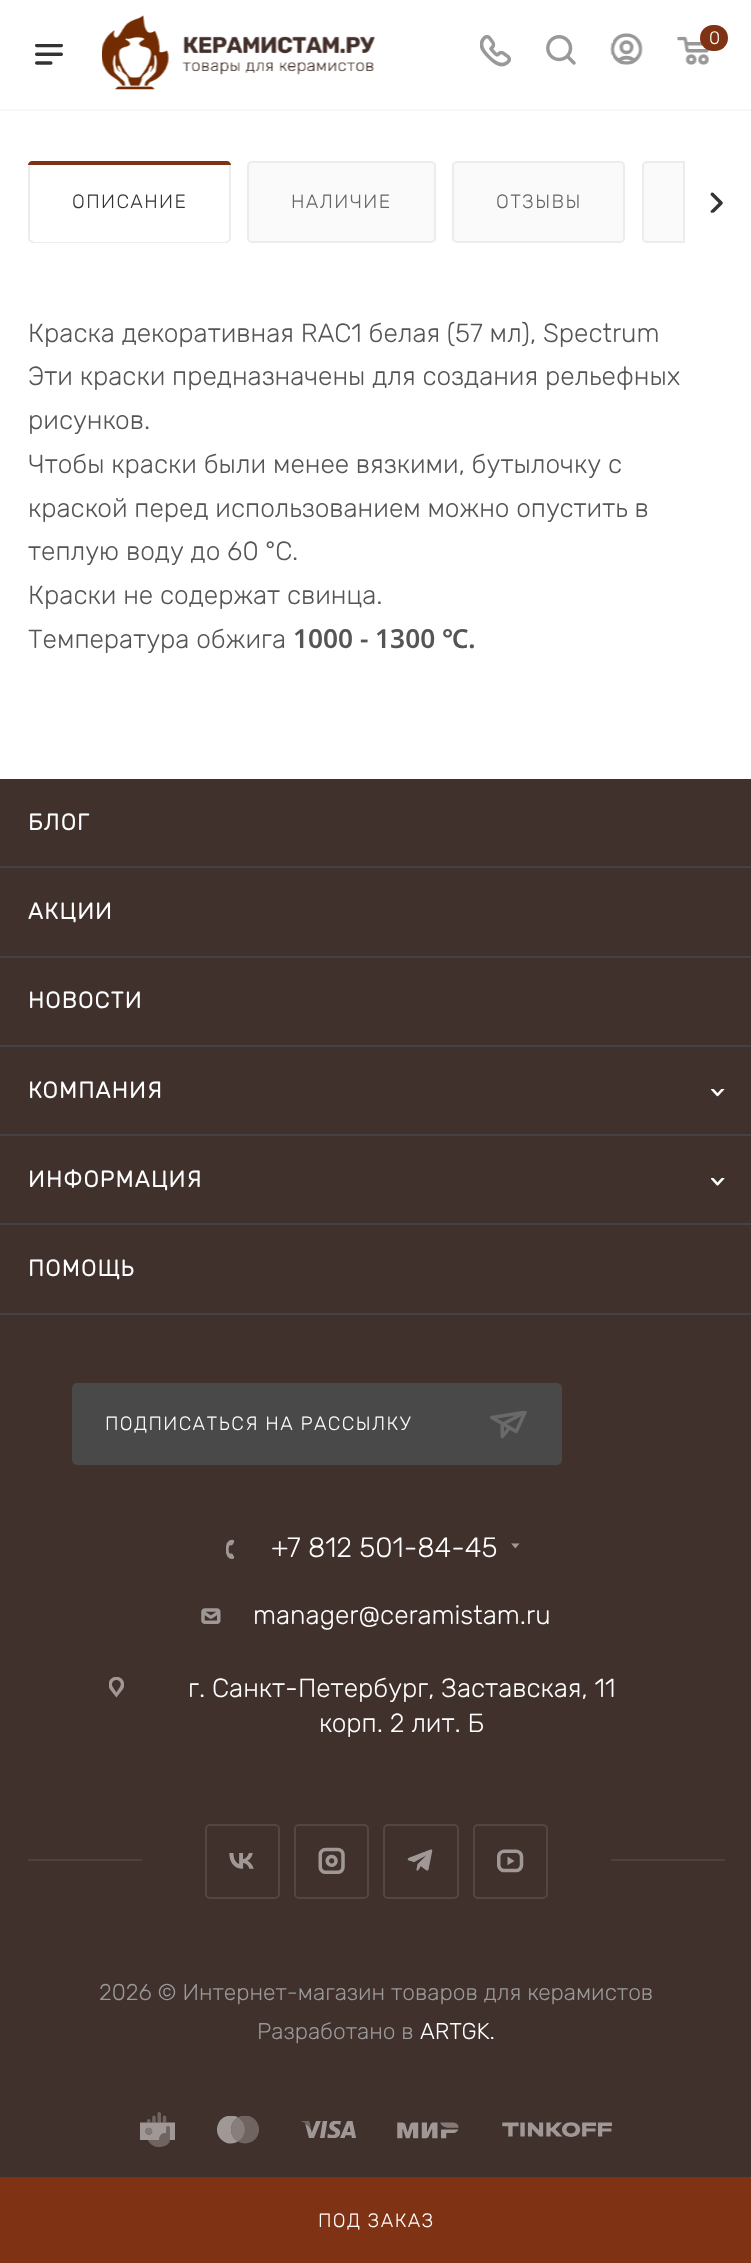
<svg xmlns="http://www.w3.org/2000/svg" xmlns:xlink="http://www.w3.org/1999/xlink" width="751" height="2263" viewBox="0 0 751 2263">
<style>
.cls-1{font:300 18px Rubik;fill:#ffffff}
.cls-2{font:300 19.25px Rubik;letter-spacing:1.4px;fill:#333333}
.cls-3{font:300 19.25px Rubik;letter-spacing:1.4px;fill:#666666}
.cls-4{font:300 26.25px Rubik;fill:#555555}
.cls-5{font:600 26.25px Noto Sans;fill:#555555}
.cls-6{font:300 19.25px Rubik;letter-spacing:1.4px;fill:#ffffff}
.cls-7{font:bold 22.75px Rubik;letter-spacing:1.4px;fill:#ffffff}
.cls-8{font:300 28px Rubik;fill:#ffffff}
.cls-9{font:300 26.25px Rubik;fill:#ffffff}
.cls-10{font:300 22.75px Rubik;fill:#999999}
.cls-11{font:300 22.75px Rubik;fill:#ffffff}
</style>
<defs>
<clipPath id="clip1"><rect x="28" y="161" width="697" height="82"/></clipPath>
</defs>
<rect width="100%" height="100%" fill="#41312d"/>
<rect fill="#ffffff" x="0" y="0" width="751" height="109"/>
<rect fill="#f8f8f8" x="0" y="109" width="751" height="2"/>
<image xlink:href="image0.png" x="102" y="15" width="273" height="75"/>
<image xlink:href="image1.png" x="480" y="35" width="31" height="32"/>
<image xlink:href="image2.png" x="546" y="35" width="30" height="30"/>
<image xlink:href="image3.png" x="610" y="33" width="33" height="32"/>
<image xlink:href="image4.png" x="677" y="36" width="33" height="29"/>
<rect fill="#803314" x="700" y="25" width="28" height="26" rx="13"/>
<image xlink:href="image5.png" x="35" y="44" width="28" height="21"/>
<rect fill="#ffffff" x="0" y="111" width="751" height="668"/>
<rect fill="#fafafa" stroke="#ececec" stroke-width="2" x="29" y="162" width="201" height="80" rx="4"/>
<rect fill="#ffffff" x="30" y="163" width="199" height="79" rx="5"/>
<path fill="#803314" d="M32 161H227C229 161 231 163 231 165H28C28 163 30 161 32 161Z"/>
<rect fill="#fafafa" stroke="#ececec" stroke-width="2" x="248" y="162" width="187" height="80" rx="4"/>
<rect fill="#fafafa" stroke="#ececec" stroke-width="2" x="453" y="162" width="171" height="80" rx="4"/>
<path fill="#fafafa" d="M647 161H725V243H647C644 243 642 241 642 238V166C642 163 644 161 647 161Z"/>
<g clip-path="url(#clip1)">
<rect fill="none" stroke="#ececec" stroke-width="2" x="643" y="162" width="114" height="80" rx="4"/>
</g>
<rect fill="#ffffff" x="685" y="161" width="40" height="82"/>
<rect fill="#ececec" x="683" y="161" width="2" height="82"/>
<image xlink:href="image6.png" x="710" y="192" width="13" height="21"/>
<rect fill="#803314" x="0" y="2177" width="751" height="86"/>
<rect fill="#434343" x="0" y="866" width="751" height="2"/>
<rect fill="#434343" x="0" y="956" width="751" height="2"/>
<rect fill="#434343" x="0" y="1045" width="751" height="2"/>
<rect fill="#434343" x="0" y="1134" width="751" height="2"/>
<image xlink:href="image7.png" x="711" y="1089" width="14" height="8"/>
<rect fill="#434343" x="0" y="1223" width="751" height="2"/>
<image xlink:href="image8.png" x="711" y="1178" width="14" height="8"/>
<rect fill="#434343" x="0" y="1313" width="751" height="2"/>
<rect fill="#494949" stroke="#494949" stroke-width="2" x="73" y="1384" width="488" height="80" rx="4"/>
<image xlink:href="image9.png" x="490" y="1411" width="37" height="28"/>
<image xlink:href="image10.png" x="226" y="1539" width="9" height="20"/>
<image xlink:href="image11.png" x="511" y="1543" width="9" height="6"/>
<image xlink:href="image12.png" x="201" y="1608" width="20" height="16"/>
<image xlink:href="image13.png" x="109" y="1677" width="15" height="21"/>
<rect fill="#50413e" x="28" y="1859" width="697" height="2"/>
<rect fill="#41312d" x="142" y="1859" width="469" height="2"/>
<image xlink:href="image14.png" x="229" y="1853" width="25" height="16"/>
<rect fill="none" stroke="#544642" stroke-width="2" x="206" y="1825" width="73" height="73" rx="4"/>
<image xlink:href="image15.png" x="318" y="1847" width="27" height="27"/>
<rect fill="none" stroke="#544642" stroke-width="2" x="295" y="1825" width="73" height="73" rx="4"/>
<image xlink:href="image16.png" x="407" y="1849" width="26" height="22"/>
<rect fill="none" stroke="#544642" stroke-width="2" x="384" y="1825" width="74" height="73" rx="4"/>
<image xlink:href="image17.png" x="497" y="1849" width="27" height="24"/>
<rect fill="none" stroke="#544642" stroke-width="2" x="474" y="1825" width="73" height="73" rx="4"/>
<image xlink:href="image18.png" x="140" y="2112" width="35" height="35"/>
<image xlink:href="image19.png" x="217" y="2116" width="42" height="28"/>
<image xlink:href="image20.png" x="301" y="2121" width="55" height="17"/>
<image xlink:href="image21.png" x="397" y="2122" width="62" height="17"/>
<image xlink:href="image22.png" x="502" y="2122" width="110" height="15"/>
<text class="cls-1" x="709" y="44">0</text>
<text class="cls-2" x="72" y="208">ОПИСАНИЕ</text>
<text class="cls-3" x="291" y="208">НАЛИЧИЕ</text>
<text class="cls-3" x="496" y="208">ОТЗЫВЫ</text>
<text class="cls-4"><tspan x="28" y="342">Краска декоративная RAC1 белая (57 мл), Spectrum</tspan><tspan x="28" y="385">Эти краски предназначены для создания рельефных</tspan><tspan x="28" y="429">рисунков.</tspan><tspan x="28" y="473">Чтобы краски были менее вязкими, бутылочку с</tspan><tspan x="28" y="517">краской перед использованием можно опустить в</tspan><tspan x="28" y="560">теплую воду до 60 °C.</tspan><tspan x="28" y="604">Краски не содержат свинца.</tspan><tspan x="28" y="648">Температура обжига</tspan></text>
<text class="cls-5" x="293" y="648">1000 - 1300 ℃.</text>
<text class="cls-6" x="318" y="2227">ПОД ЗАКАЗ</text>
<text class="cls-7" x="28" y="830">БЛОГ</text>
<text class="cls-7" x="28" y="919">АКЦИИ</text>
<text class="cls-7" x="28" y="1008">НОВОСТИ</text>
<text class="cls-7" x="28" y="1098">КОМПАНИЯ</text>
<text class="cls-7" x="28" y="1187">ИНФОРМАЦИЯ</text>
<text class="cls-7" x="28" y="1276">ПОМОЩЬ</text>
<text class="cls-6" x="105" y="1430">ПОДПИСАТЬСЯ НА РАССЫЛКУ</text>
<text class="cls-8" x="271" y="1557">+7 812 501-84-45</text>
<text class="cls-9" x="253" y="1624">manager@ceramistam.ru</text>
<text class="cls-9" x="188" y="1697">г. Санкт-Петербург, Заставская, 11</text>
<text class="cls-9" x="319" y="1732">корп. 2 лит. Б</text>
<text class="cls-10" x="99" y="2000">2026 © Интернет-магазин товаров для керамистов</text>
<text class="cls-10" x="257" y="2039">Разработано в</text>
<text class="cls-11" x="420" y="2039">ARTGK.</text>
</svg>
